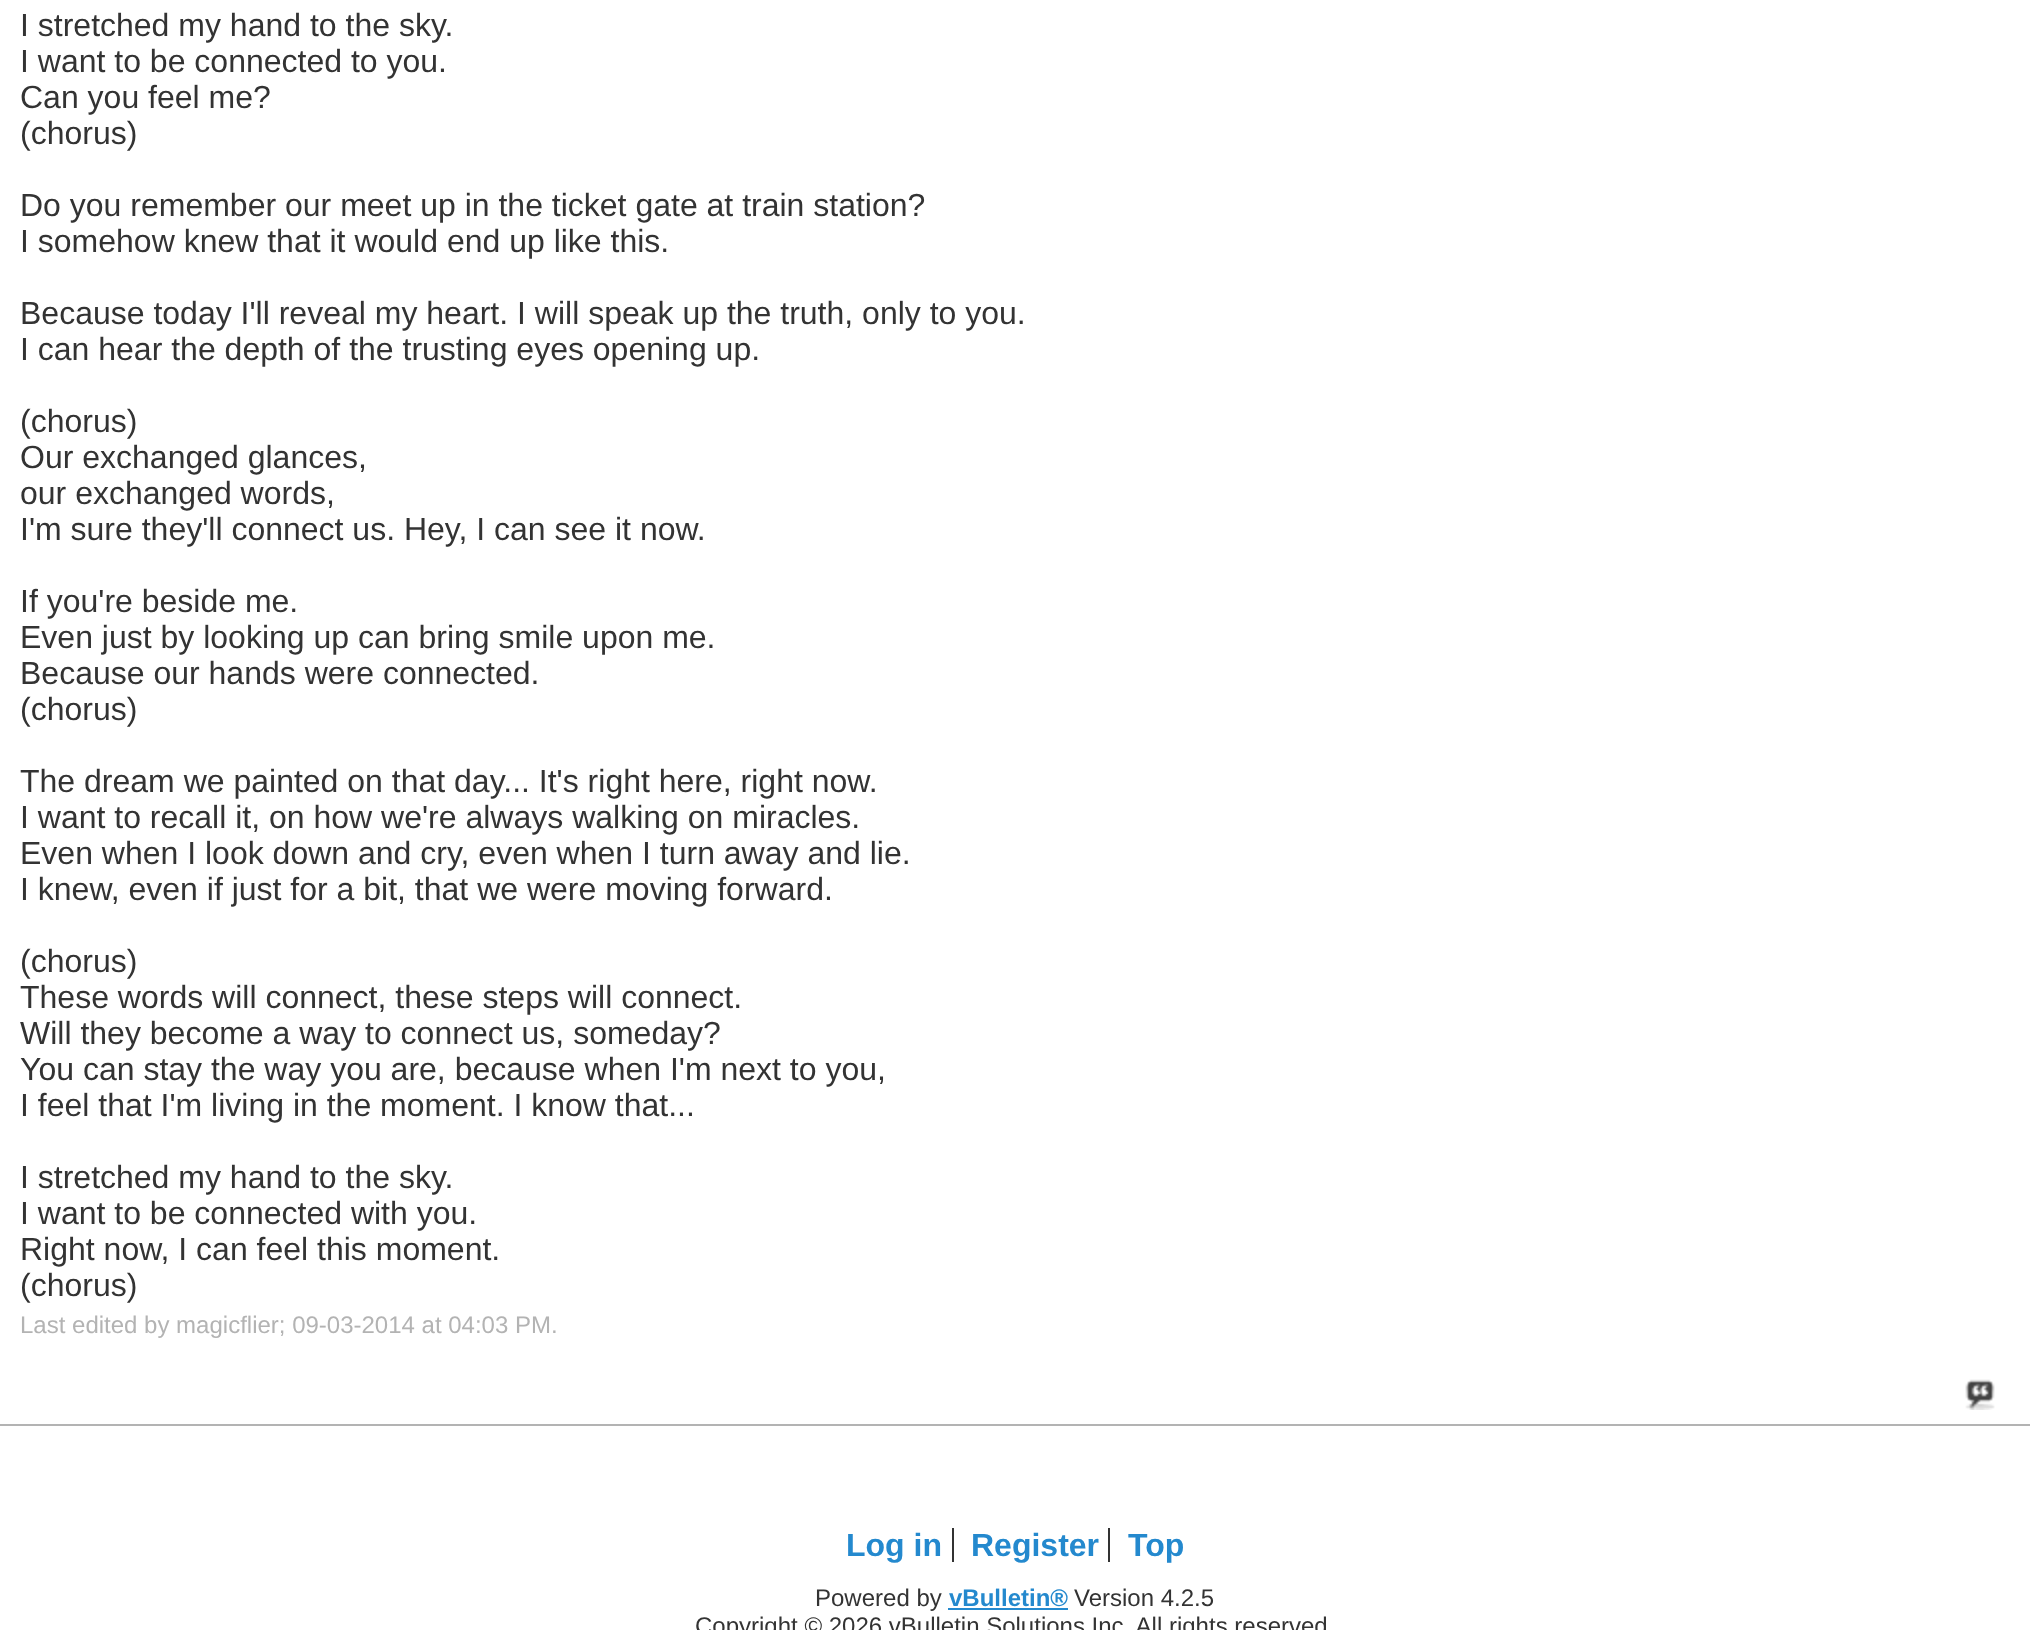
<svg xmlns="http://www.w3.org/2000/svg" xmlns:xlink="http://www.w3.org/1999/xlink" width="2030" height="1630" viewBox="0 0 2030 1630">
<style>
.cls-1{font:32px Liberation Sans;fill:#333333}
.cls-2{font:24px Liberation Sans;fill:#b3b3b3}
.cls-3{font:bold 32px Liberation Sans;fill:#2489ce}
.cls-4{font:24px Liberation Sans;fill:#333333}
.cls-5{font:bold 24px Liberation Sans;fill:#2489ce}
</style>
<rect width="100%" height="100%" fill="#ffffff"/>
<rect fill="#b3b3b3" x="0" y="1424" width="2030" height="2"/>
<image xlink:href="image0.png" x="1965" y="1379" width="30" height="31"/>
<rect fill="#333333" x="952" y="1528" width="2" height="34"/>
<rect fill="#333333" x="1108" y="1528" width="2" height="34"/>
<rect fill="#2489ce" x="948" y="1608" width="120" height="2"/>
<text class="cls-1"><tspan x="20" y="36">I stretched my hand to the sky.</tspan><tspan x="20" y="72">I want to be connected to you.</tspan><tspan x="20" y="108">Can you feel me?</tspan><tspan x="20" y="144">(chorus)</tspan></text>
<text class="cls-1"><tspan x="20" y="216">Do you remember our meet up in the ticket gate at train station?</tspan><tspan x="20" y="252">I somehow knew that it would end up like this.</tspan></text>
<text class="cls-1"><tspan x="20" y="324">Because today I'll reveal my heart. I will speak up the truth, only to you.</tspan><tspan x="20" y="360">I can hear the depth of the trusting eyes opening up.</tspan></text>
<text class="cls-1"><tspan x="20" y="432">(chorus)</tspan><tspan x="20" y="468">Our exchanged glances,</tspan><tspan x="20" y="504">our exchanged words,</tspan><tspan x="20" y="540">I'm sure they'll connect us. Hey, I can see it now.</tspan></text>
<text class="cls-1"><tspan x="20" y="612">If you're beside me.</tspan><tspan x="20" y="648">Even just by looking up can bring smile upon me.</tspan><tspan x="20" y="684">Because our hands were connected.</tspan><tspan x="20" y="720">(chorus)</tspan></text>
<text class="cls-1"><tspan x="20" y="792">The dream we painted on that day... It's right here, right now.</tspan><tspan x="20" y="828">I want to recall it, on how we're always walking on miracles.</tspan><tspan x="20" y="864">Even when I look down and cry, even when I turn away and lie.</tspan><tspan x="20" y="900">I knew, even if just for a bit, that we were moving forward.</tspan></text>
<text class="cls-1"><tspan x="20" y="972">(chorus)</tspan><tspan x="20" y="1008">These words will connect, these steps will connect.</tspan><tspan x="20" y="1044">Will they become a way to connect us, someday?</tspan><tspan x="20" y="1080">You can stay the way you are, because when I'm next to you,</tspan><tspan x="20" y="1116">I feel that I'm living in the moment. I know that...</tspan></text>
<text class="cls-1"><tspan x="20" y="1188">I stretched my hand to the sky.</tspan><tspan x="20" y="1224">I want to be connected with you.</tspan><tspan x="20" y="1260">Right now, I can feel this moment.</tspan><tspan x="20" y="1296">(chorus)</tspan></text>
<text class="cls-2" x="20" y="1333">Last edited by magicflier; 09-03-2014 at 04:03 PM.</text>
<text class="cls-3" x="846" y="1556">Log in</text>
<text class="cls-3" x="971" y="1556">Register</text>
<text class="cls-3" x="1128" y="1556">Top</text>
<text class="cls-4" x="815" y="1606">Powered by</text>
<text class="cls-5" x="949" y="1606">vBulletin®</text>
<text class="cls-4" x="1074" y="1606">Version 4.2.5</text>
<text class="cls-4" x="695" y="1634">Copyright © 2026 vBulletin Solutions Inc. All rights reserved</text>
</svg>
